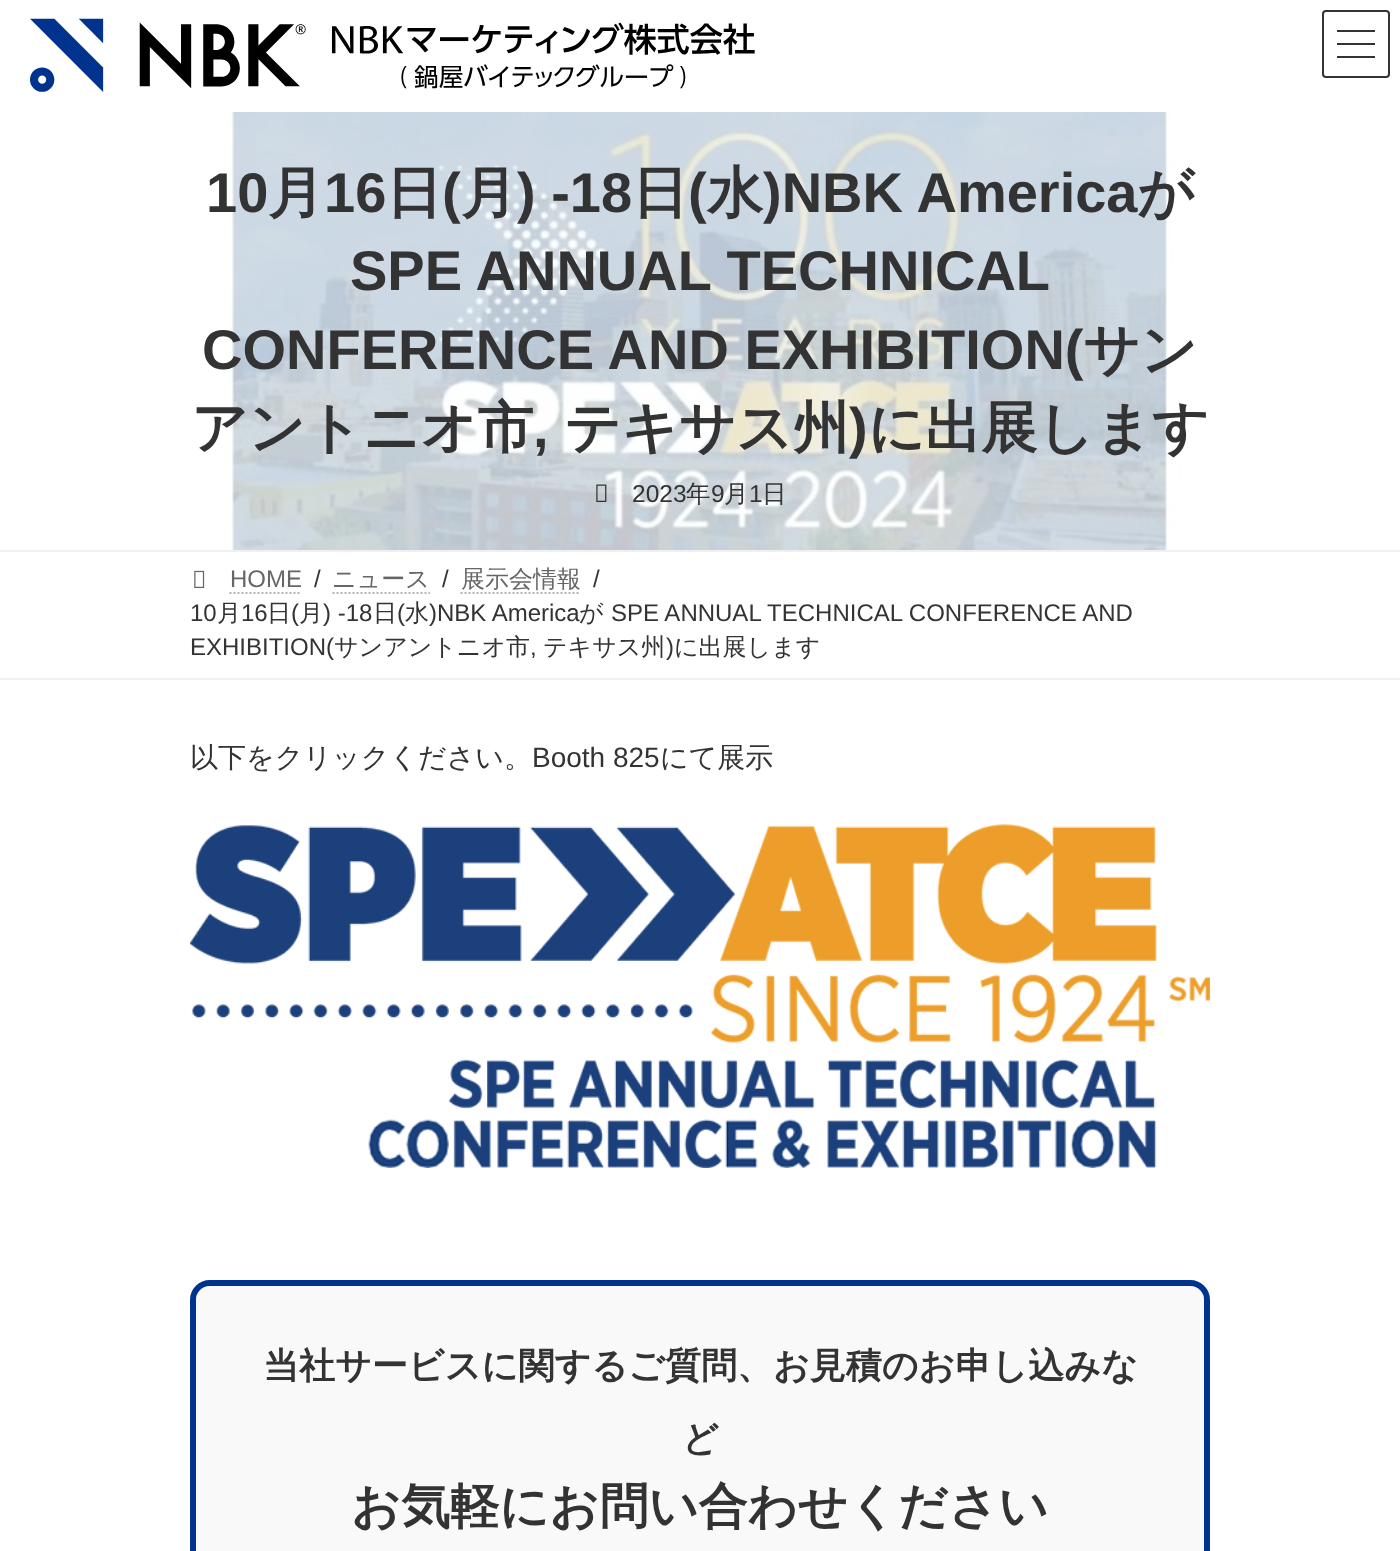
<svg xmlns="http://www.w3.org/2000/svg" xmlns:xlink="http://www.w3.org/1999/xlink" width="1400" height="1551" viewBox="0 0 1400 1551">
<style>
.cls-1{font:bold 56px Liberation Sans;fill:#333333}
.cls-2{font:bold 56px WenQuanYi Zen Hei;fill:#333333}
.cls-3{font:24.5px Liberation Sans;fill:#333333}
.cls-4{font:500 24.5px WenQuanYi Zen Hei;fill:#333333}
.cls-5{font:24px Liberation Sans;fill:#666666}
.cls-6{font:24px Liberation Sans;fill:#333333}
.cls-7{font:500 24px WenQuanYi Zen Hei;fill:#666666}
.cls-8{font:500 24px WenQuanYi Zen Hei;fill:#333333}
.cls-9{font:500 28px WenQuanYi Zen Hei;fill:#333333}
.cls-10{font:28px Liberation Sans;fill:#333333}
.cls-11{font:bold 36px WenQuanYi Zen Hei;fill:#333333}
.cls-12{font:bold 49px WenQuanYi Zen Hei;fill:#333333}
</style>
<rect width="100%" height="100%" fill="#ffffff"/>
<image xlink:href="image0.png" x="30" y="18" width="725" height="74"/>
<rect fill="#333333" x="1337" y="30" width="38" height="2"/>
<rect fill="#333333" x="1337" y="43" width="38" height="2"/>
<rect fill="#333333" x="1337" y="56" width="38" height="2"/>
<rect fill="none" stroke="#333333" stroke-width="2" x="1323" y="11" width="66" height="66" rx="3"/>
<image xlink:href="image1.png" x="222" y="112" width="959" height="438"/>
<image xlink:href="image2.png" x="596" y="484" width="11" height="18"/>
<rect fill="#f0f0f0" x="0" y="550" width="1400" height="2"/>
<rect fill="#f0f0f0" x="0" y="678" width="1400" height="2"/>
<image xlink:href="image3.png" x="194" y="570" width="11" height="18"/>
<path fill="none" stroke="#b3b3b3" stroke-width="2" stroke-dasharray="2 2" d="M229.5 593H301.5"/>
<path fill="none" stroke="#b3b3b3" stroke-width="2" stroke-dasharray="2 2" d="M332.5 593H430"/>
<path fill="none" stroke="#b3b3b3" stroke-width="2" stroke-dasharray="2 2" d="M460.5 593H580.5"/>
<image xlink:href="image4.png" x="190" y="824" width="1020" height="344"/>
<rect fill="none" stroke="#00338e" stroke-width="6" x="193" y="1283" width="1014" height="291" rx="17"/>
<rect fill="#f3f4f5" fill-opacity="0.5" x="196" y="1286" width="1008" height="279" rx="14"/>
<text class="cls-1" x="206" y="212">10</text>
<text class="cls-2" x="268" y="212">月</text>
<text class="cls-1" x="324" y="212">16</text>
<text class="cls-2" x="386" y="212">日</text>
<text class="cls-1" x="442" y="212">(</text>
<text class="cls-2" x="461" y="212">月</text>
<text class="cls-1" x="517" y="212">) -18</text>
<text class="cls-2" x="632" y="212">日</text>
<text class="cls-1" x="688" y="212">(</text>
<text class="cls-2" x="707" y="212">水</text>
<text class="cls-1" x="763" y="212">)NBK America</text>
<text class="cls-2" x="1137" y="212">が</text>
<text class="cls-1" x="350" y="290">SPE ANNUAL TECHNICAL</text>
<text class="cls-1" x="202" y="369">CONFERENCE AND EXHIBITION(</text>
<text class="cls-2" x="1083" y="369">サン</text>
<text class="cls-2" x="191" y="447">アントニオ市</text>
<text class="cls-1" x="533" y="447">,</text>
<text class="cls-2" x="564" y="447">テキサス州</text>
<text class="cls-1" x="849" y="447">)</text>
<text class="cls-2" x="868" y="447">に出展します</text>
<text class="cls-3" x="632" y="502">2023</text>
<text class="cls-4" x="686" y="502">年</text>
<text class="cls-3" x="711" y="502">9</text>
<text class="cls-4" x="724" y="502">月</text>
<text class="cls-3" x="749" y="502">1</text>
<text class="cls-4" x="762" y="502">日</text>
<text class="cls-5" x="230" y="587">HOME</text>
<text class="cls-6" x="314" y="587">/</text>
<text class="cls-7" x="332" y="587">ニュース</text>
<text class="cls-6" x="442" y="587">/</text>
<text class="cls-7" x="461" y="587">展示会情報</text>
<text class="cls-6" x="593" y="587">/</text>
<text class="cls-6" x="190" y="621">10</text>
<text class="cls-8" x="217" y="621">月</text>
<text class="cls-6" x="241" y="621">16</text>
<text class="cls-8" x="267" y="621">日</text>
<text class="cls-6" x="291" y="621">(</text>
<text class="cls-8" x="299" y="621">月</text>
<text class="cls-6" x="323" y="621">) -18</text>
<text class="cls-8" x="373" y="621">日</text>
<text class="cls-6" x="397" y="621">(</text>
<text class="cls-8" x="405" y="621">水</text>
<text class="cls-6" x="429" y="621">)NBK America</text>
<text class="cls-8" x="579" y="621">が</text>
<text class="cls-6" x="611" y="621">SPE ANNUAL TECHNICAL CONFERENCE AND</text>
<text class="cls-6" x="190" y="655">EXHIBITION(</text>
<text class="cls-8" x="334" y="655">サンアントニオ市</text>
<text class="cls-6" x="530" y="655">,</text>
<text class="cls-8" x="543" y="655">テキサス州</text>
<text class="cls-6" x="666" y="655">)</text>
<text class="cls-8" x="674" y="655">に出展します</text>
<text class="cls-9" x="190" y="767">以下をクリックください。</text>
<text class="cls-10" x="532" y="767">Booth 825</text>
<text class="cls-9" x="660" y="767">にて展示</text>
<text class="cls-11" x="263" y="1378">当社サービスに関するご質問、お見積のお申し込みな</text>
<text class="cls-11" x="682" y="1451">ど</text>
<text class="cls-12" x="351" y="1523">お気軽にお問い合わせください</text>
</svg>
